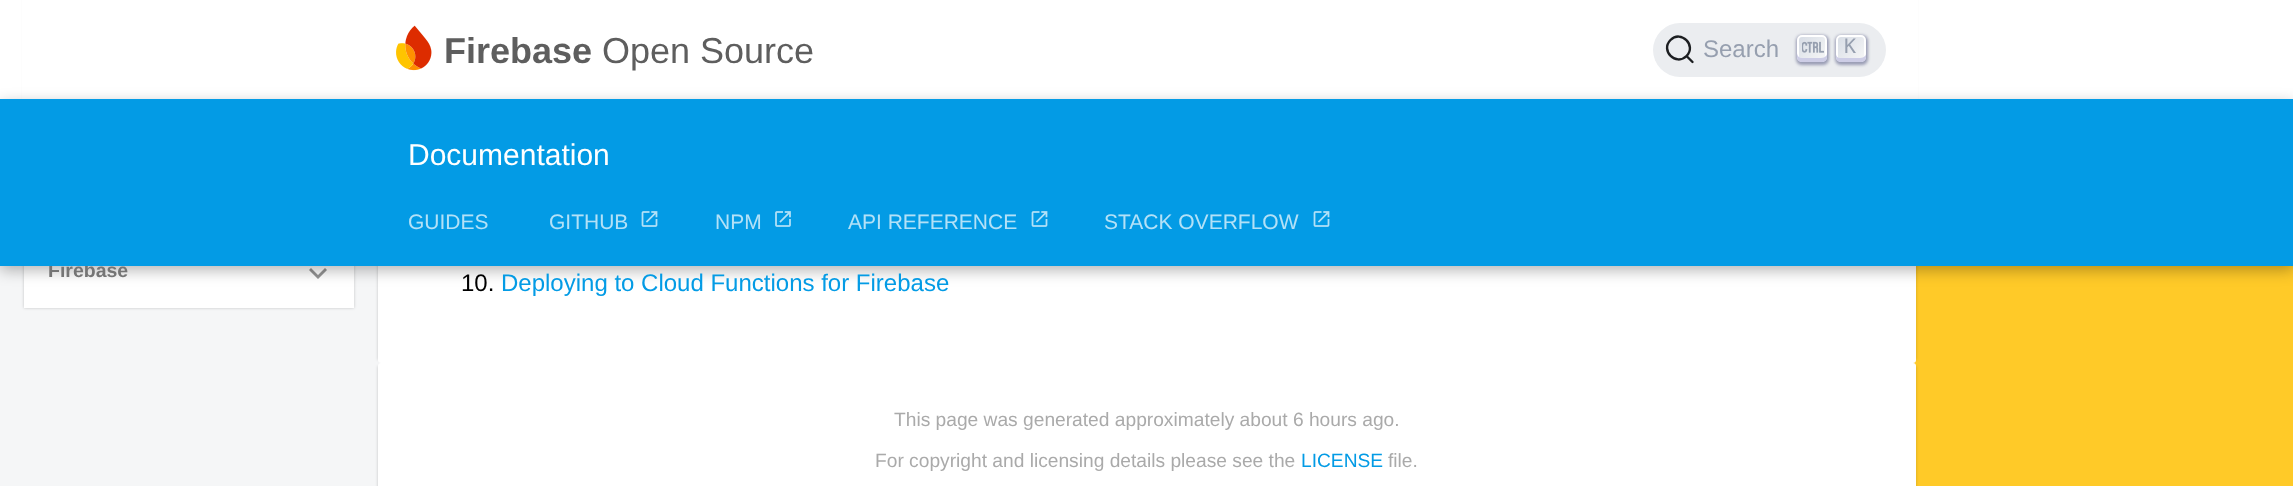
<svg xmlns="http://www.w3.org/2000/svg" xmlns:xlink="http://www.w3.org/1999/xlink" width="2293" height="486" viewBox="0 0 2293 486">
<style>
.cls-1{font:bold 36px Liberation Sans;fill:#5e5e5e}
.cls-2{font:36px Liberation Sans;fill:#5e5e5e}
.cls-3{font:24px Liberation Sans;fill:#969faf}
.cls-4{font:20px DejaVu Sans Mono;fill:#969faf}
.cls-5{font:bold 19.5px Liberation Sans;fill:#757575}
.cls-6{font:21px Liberation Sans;fill:#b3e1f7}
.cls-7{font:30px Liberation Sans;fill:#ffffff}
.cls-8{font:24px Liberation Sans;fill:#000000}
.cls-9{font:24px Liberation Sans;fill:#039be5}
.cls-10{font:19.2px Liberation Sans;fill:#aaaaaa}
.cls-11{font:19.2px Liberation Sans;fill:#039be5}
</style>
<defs>
<linearGradient id="g1" gradientUnits="userSpaceOnUse" x1="1798" y1="34" x2="1826" y2="62"><stop offset="0" stop-color="#d5dbe4"/><stop offset="1" stop-color="#f8f8f8"/></linearGradient>
<linearGradient id="g2" gradientUnits="userSpaceOnUse" x1="1837" y1="34" x2="1865" y2="62"><stop offset="0" stop-color="#d5dbe4"/><stop offset="1" stop-color="#f8f8f8"/></linearGradient>
</defs>
<rect width="100%" height="100%" fill="#ffffff"/>
<image xlink:href="image0.png" x="0" y="266" width="2293" height="220"/>
<rect fill="#000000" fill-opacity="0.2" filter="blur(1.5px)" x="24" y="-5" width="330" height="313"/>
<rect fill="#000000" fill-opacity="0.2" filter="blur(1.5px)" x="384" y="-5" width="1532" height="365"/>
<rect fill="#000000" fill-opacity="0.2" filter="blur(1.5px)" x="378" y="-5" width="1532" height="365"/>
<rect fill="#000000" fill-opacity="0.2" filter="blur(1.5px)" x="381" y="-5" width="1532" height="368"/>
<rect fill="#ffffff" x="378" y="-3" width="1538" height="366" rx="3"/>
<rect fill="#ffffff" x="22" y="0" width="1896" height="99"/>
<image xlink:href="image1.png" x="396" y="25" width="36" height="46"/>
<rect fill="#ebedf0" x="1653" y="23" width="233" height="54" rx="27"/>
<path fill="none" stroke="#1c1e21" stroke-width="2.4" stroke-linecap="round" stroke-linejoin="round" d="M1686.5 56L1692.5 62L1686.5 56C1676 66.5 1660 50.5 1670.5 40C1681 29.5 1697 45.5 1686.5 56Z"/>
<rect fill="#1e235a" fill-opacity="0.4" filter="blur(1.5px)" x="1796" y="35" width="33" height="30" rx="6"/>
<rect fill="url(#g1)" stroke="#ffffff" stroke-width="2" x="1798" y="36" width="28" height="25" rx="4"/>
<path fill="#cdcde6" d="M1827 54C1826.5 56.5 1824.5 58 1819 58H1802C1799 58 1797.5 56 1797 53.5V57C1797 60 1799 62 1802 62H1822C1825 62 1827 60 1827 57Z"/>
<image xlink:href="image2.png" x="1802" y="41" width="22" height="12"/>
<rect fill="#1e235a" fill-opacity="0.4" filter="blur(1.5px)" x="1835" y="35" width="33" height="30" rx="6"/>
<rect fill="url(#g2)" stroke="#ffffff" stroke-width="2" x="1837" y="36" width="28" height="25" rx="4"/>
<path fill="#cdcde6" d="M1866 54C1865.5 56.5 1863.5 58 1858 58H1840C1837.5 58 1836.5 56.5 1836 54.5V57C1836 60 1838 62 1841 62H1861C1864 62 1866 60 1866 57Z"/>
<rect fill="#ffffff" x="24" y="266" width="330" height="42"/>
<path fill="#949494" d="M325 268L327 270L318 279L309 270L311 268L318 275Z"/>
<rect fill="#000000" fill-opacity="0.3" filter="blur(7.5px)" x="0" y="104" width="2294" height="166"/>
<rect fill="#000000" fill-opacity="0.2" filter="blur(1.5px)" x="384" y="366" width="1532" height="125"/>
<rect fill="#000000" fill-opacity="0.2" filter="blur(1.5px)" x="378" y="366" width="1532" height="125"/>
<rect fill="#ffffff" x="378" y="363" width="1538" height="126" rx="3"/>
<text class="cls-1" x="444" y="63">Firebase</text>
<text class="cls-2" x="602" y="63">Open Source</text>
<text class="cls-3" x="1703" y="57">Search</text>
<text class="cls-4" x="1844" y="53">K</text>
<text class="cls-5" x="48" y="277">Firebase</text>
<rect fill="#039be5" x="0" y="99" width="2293" height="167"/>
<image xlink:href="image3.png" x="1313" y="211" width="17" height="16"/>
<text class="cls-6" x="1104" y="229">STACK OVERFLOW</text>
<image xlink:href="image3.png" x="1031" y="211" width="17" height="16"/>
<text class="cls-6" x="848" y="229">API REFERENCE</text>
<image xlink:href="image4.png" x="775" y="211" width="16" height="16"/>
<text class="cls-6" x="715" y="229">NPM</text>
<image xlink:href="image3.png" x="641" y="211" width="17" height="16"/>
<text class="cls-6" x="549" y="229">GITHUB</text>
<text class="cls-6" x="408" y="229">GUIDES</text>
<text class="cls-7" x="408" y="165">Documentation</text>
<text class="cls-8" x="461" y="291">10.</text>
<text class="cls-9" x="501" y="291">Deploying to Cloud Functions for Firebase</text>
<text class="cls-10" x="894" y="426">This page was generated approximately about 6 hours ago.</text>
<text class="cls-10" x="875" y="467">For copyright and licensing details please see the</text>
<text class="cls-11" x="1301" y="467">LICENSE</text>
<text class="cls-10" x="1388" y="467">file.</text>
</svg>
